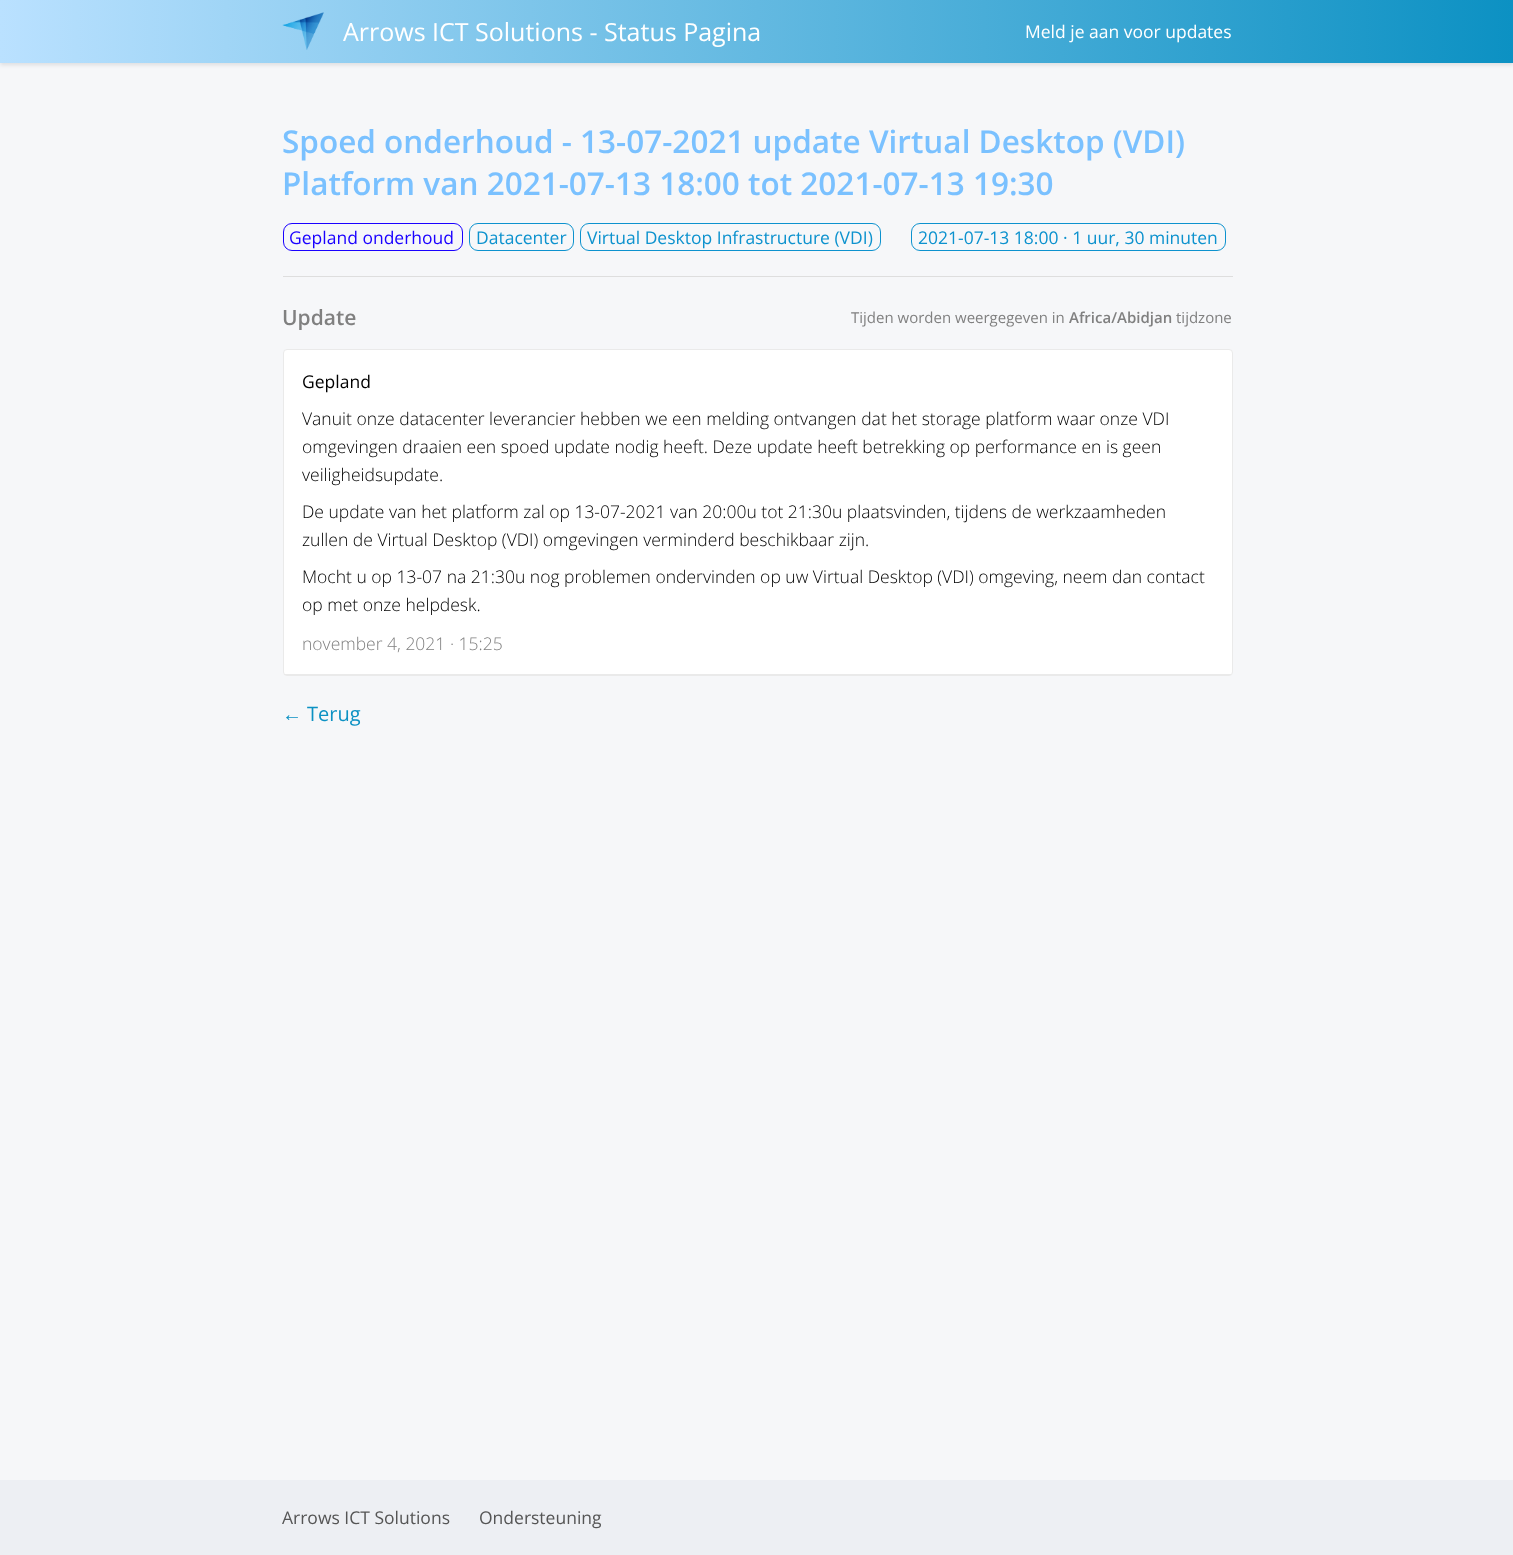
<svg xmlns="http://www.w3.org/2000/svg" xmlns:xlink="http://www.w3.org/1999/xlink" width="1513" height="1555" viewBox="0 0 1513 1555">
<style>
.cls-1{font:25px Open Sans;fill:#ffffff}
.cls-2{font:17.5px Open Sans;fill:#ffffff}
.cls-3{font:600 31.5px Open Sans;fill:#7ac1ff}
.cls-4{font:17.5px Open Sans;fill:#1a01ff}
.cls-5{font:17.5px Open Sans;fill:#0d92ce}
.cls-6{font:600 21px Open Sans;fill:#808080}
.cls-7{font:15px Open Sans;fill:#808080}
.cls-8{font:600 15px Open Sans;fill:#808080}
.cls-9{font:17.5px Open Sans;fill:#000000}
.cls-10{font:300 17.5px Open Sans;fill:#000000}
.cls-11{font:300 17.5px Open Sans;fill:#808080}
.cls-12{font:20px Liberation Sans;fill:#0c91c3}
.cls-13{font:20px Open Sans;fill:#0c91c3}
.cls-14{font:17.5px Open Sans;fill:#555555}
</style>
<defs>
<linearGradient id="g1" gradientUnits="userSpaceOnUse" x1="0" y1="31" x2="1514" y2="31"><stop offset="0" stop-color="#bae1ff"/><stop offset="1" stop-color="#0c91c3"/></linearGradient>
</defs>
<rect width="100%" height="100%" fill="#f6f7f9"/>
<rect fill="#000000" fill-opacity="0.1" filter="blur(2px)" x="0" y="3" width="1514" height="62"/>
<rect fill="url(#g1)" x="0" y="0" width="1513" height="63"/>
<image xlink:href="image0.png" x="282" y="12" width="42" height="38"/>
<rect fill="none" stroke="#1a01ff" x="283.5" y="223.5" width="179" height="27" rx="8.5"/>
<rect fill="none" stroke="#0d92ce" x="469.5" y="223.5" width="104" height="27" rx="8.5"/>
<rect fill="none" stroke="#0d92ce" x="580.5" y="223.5" width="300" height="27" rx="8.5"/>
<rect fill="none" stroke="#0d92ce" x="911.5" y="223.5" width="314" height="27" rx="8.5"/>
<rect fill="#dedede" x="283" y="276" width="950" height="1"/>
<rect fill="#ffffff" stroke="#eaeaea" x="283.5" y="349.5" width="949" height="326" rx="3.5"/>
<rect fill="#eaeaea" x="284" y="674" width="947" height="1"/>
<rect fill="#edeff3" x="0" y="1480" width="1513" height="75"/>
<text class="cls-1" x="343" y="41">Arrows ICT Solutions - Status Pagina</text>
<text class="cls-2" x="1025" y="38">Meld je aan voor updates</text>
<text class="cls-3"><tspan x="282" y="153">Spoed onderhoud - 13-07-2021 update Virtual Desktop (VDI)</tspan><tspan x="282" y="195">Platform van 2021-07-13 18:00 tot 2021-07-13 19:30</tspan></text>
<text class="cls-4" x="289" y="244">Gepland onderhoud</text>
<text class="cls-5" x="476" y="244">Datacenter</text>
<text class="cls-5" x="587" y="244">Virtual Desktop Infrastructure (VDI)</text>
<text class="cls-5" x="918" y="244">2021-07-13 18:00 · 1 uur, 30 minuten</text>
<text class="cls-6" x="282" y="325">Update</text>
<text class="cls-7" x="851" y="323">Tijden worden weergegeven in</text>
<text class="cls-8" x="1069" y="323">Africa/Abidjan</text>
<text class="cls-7" x="1176" y="323">tijdzone</text>
<text class="cls-9" x="302" y="388">Gepland</text>
<text class="cls-10"><tspan x="302" y="425">Vanuit onze datacenter leverancier hebben we een melding ontvangen dat het storage platform waar onze VDI</tspan><tspan x="302" y="453">omgevingen draaien een spoed update nodig heeft. Deze update heeft betrekking op performance en is geen</tspan><tspan x="302" y="481">veiligheidsupdate.</tspan></text>
<text class="cls-10"><tspan x="302" y="518">De update van het platform zal op 13-07-2021 van 20:00u tot 21:30u plaatsvinden, tijdens de werkzaamheden</tspan><tspan x="302" y="546">zullen de Virtual Desktop (VDI) omgevingen verminderd beschikbaar zijn.</tspan></text>
<text class="cls-10"><tspan x="302" y="583">Mocht u op 13-07 na 21:30u nog problemen ondervinden op uw Virtual Desktop (VDI) omgeving, neem dan contact</tspan><tspan x="302" y="611">op met onze helpdesk.</tspan></text>
<text class="cls-11" x="302" y="650">november 4, 2021 · 15:25</text>
<text class="cls-12" x="282" y="721">←</text>
<text class="cls-13" x="307" y="721">Terug</text>
<text class="cls-14" x="282" y="1524">Arrows ICT Solutions</text>
<text class="cls-14" x="479" y="1524">Ondersteuning</text>
</svg>
